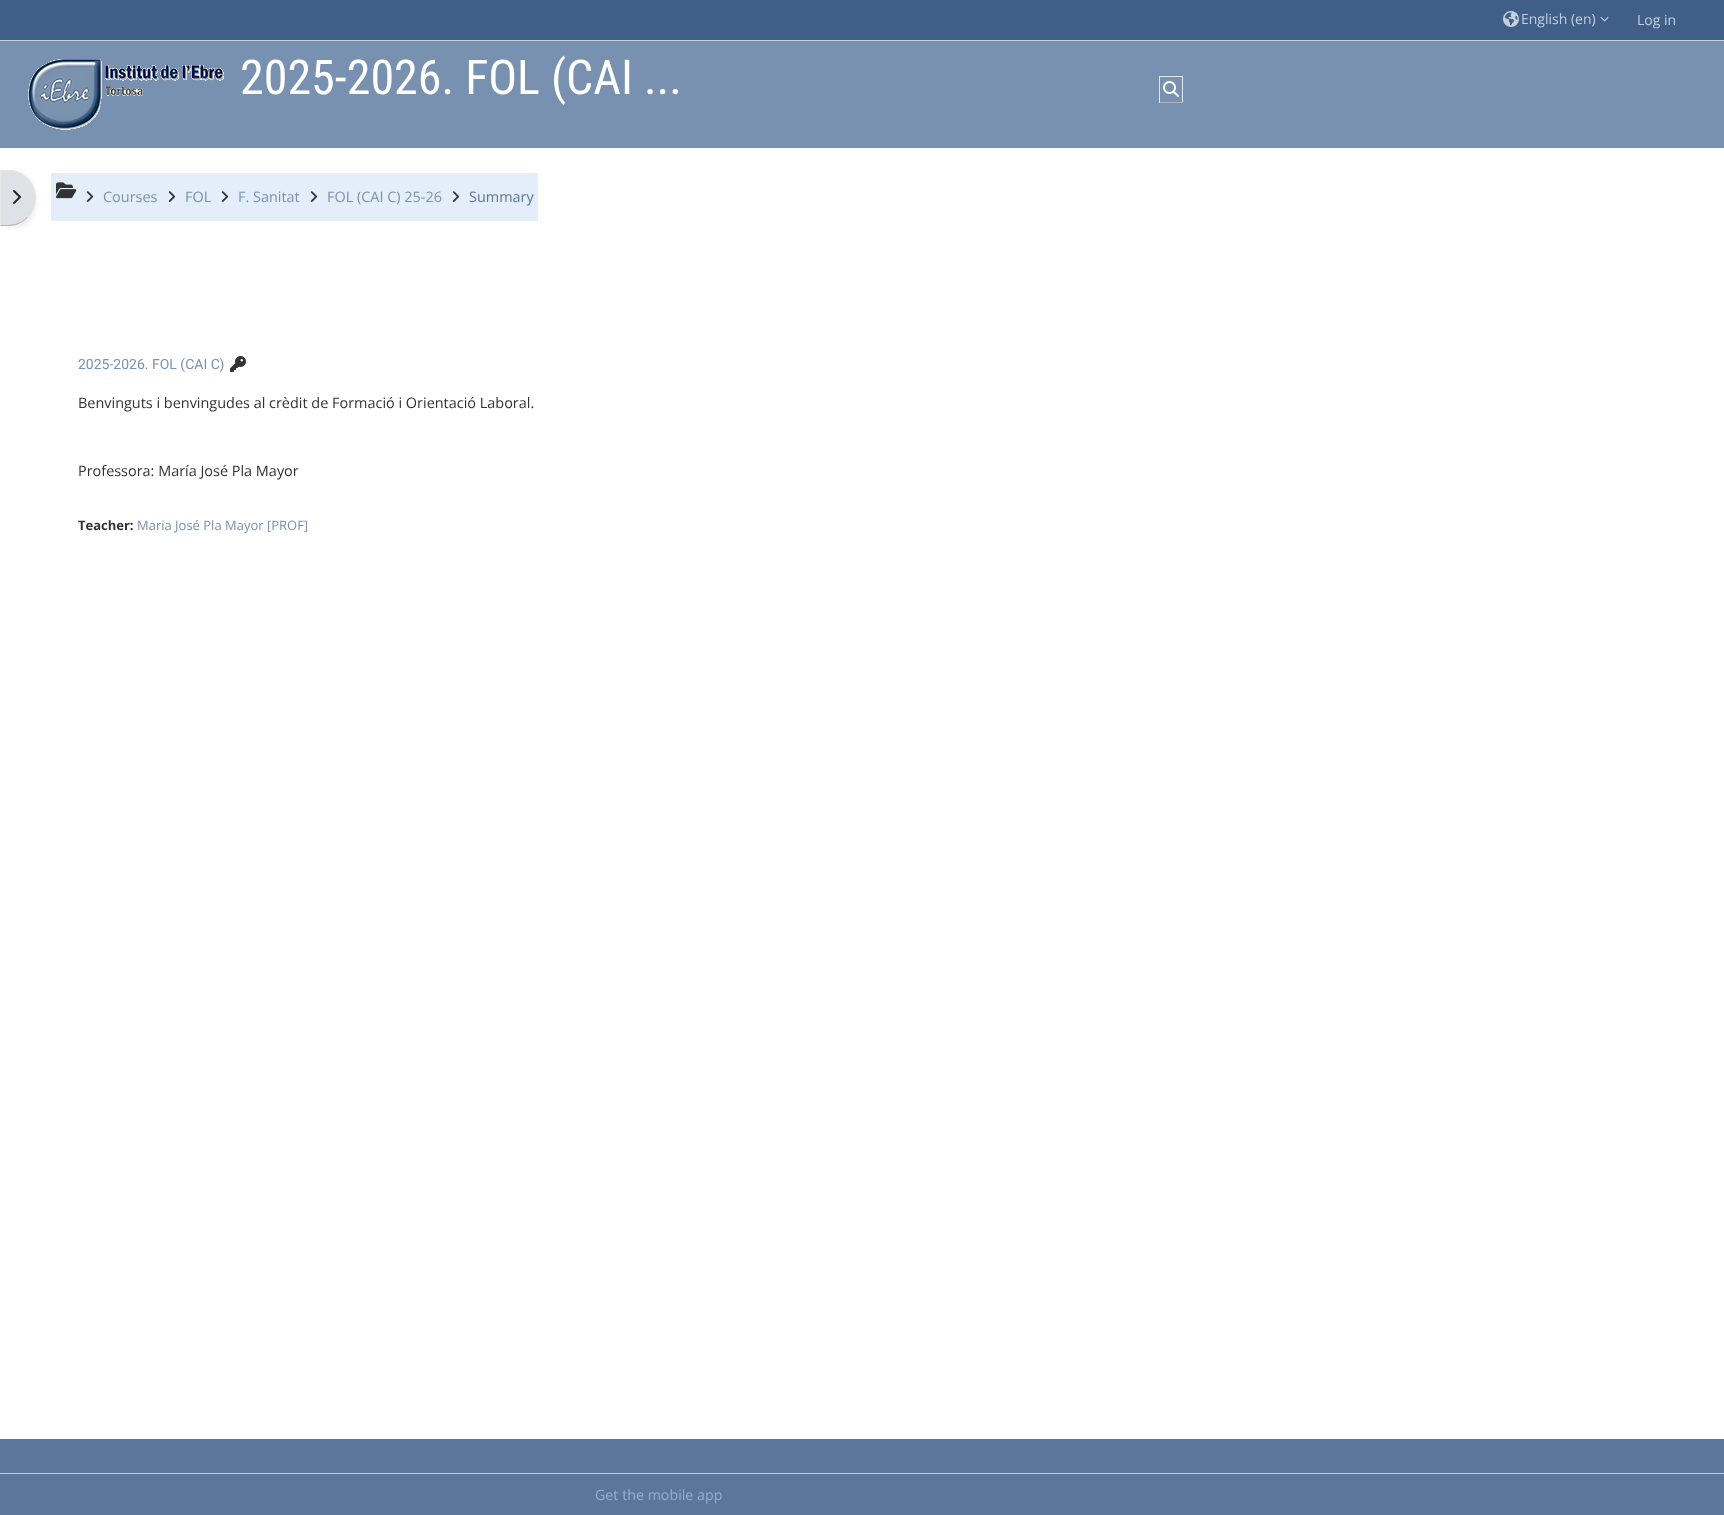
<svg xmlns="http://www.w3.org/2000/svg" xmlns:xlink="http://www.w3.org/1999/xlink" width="1724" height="1515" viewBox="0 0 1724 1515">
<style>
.cls-1{font:14px Open Sans;fill:#c3cfde}
.cls-2{font:48px Roboto Condensed;fill:#ffffff}
.cls-3{font:14.45px Open Sans;fill:#7991b0}
.cls-4{font:14.45px Open Sans;fill:#5a769b}
.cls-5{font:14px Roboto;fill:#7991b0}
.cls-6{font:14.45px Open Sans;fill:#333333}
.cls-7{font:bold 13px Open Sans;fill:#333333}
.cls-8{font:13px Open Sans;fill:#7991b0}
.cls-9{font:14.25px Open Sans;fill:#93b1c9}
</style>
<rect width="100%" height="100%" fill="#ffffff"/>
<rect fill="#7991b0" x="0" y="41" width="1724" height="107"/>
<rect fill="#3f5f88" x="0" y="0" width="1724" height="40"/>
<rect fill="#c3cfde" x="0" y="40" width="1724" height="1"/>
<image xlink:href="image0.png" x="1503" y="11" width="16" height="16"/>
<image xlink:href="image1.png" x="1600" y="17" width="9" height="5"/>
<image xlink:href="image2.png" x="28" y="59" width="196" height="71"/>
<rect fill="#e6e6e6" x="1159" y="76" width="24" height="1"/>
<rect fill="#e6e6e6" x="1182" y="76" width="1" height="27"/>
<rect fill="#b3b3b3" x="1159" y="102" width="24" height="1"/>
<rect fill="#e6e6e6" x="1159" y="76" width="1" height="27"/>
<image xlink:href="image3.png" x="1163" y="81" width="16" height="16"/>
<rect fill="#000000" fill-opacity="0.07" filter="blur(2px)" x="0" y="172" width="36" height="56" rx="28"/>
<path fill="#dee2e6" d="M0 170H8C23.5 170 36 182.5 36 198C36 213.5 23.5 226 8 226H0Z"/>
<path fill="#e6e6e6" d="M0 170L1 171C11 171 19.5 171 27 179L27.5 178.5C22.5 173 15.5 170 8 170Z"/>
<path fill="#e6e6e6" d="M27.5 178.5C38.5 189.5 38.5 206.5 27.5 217.5L27 217C37.5 206.5 37.5 189.5 27 179Z"/>
<path fill="#b3b3b3" d="M8 226C15.5 226 22.5 223 27.5 217.5L27 217C19.5 225 11 225 1 225L0 226Z"/>
<path fill="#e6e6e6" d="M1 171L0 170V226L1 225Z"/>
<image xlink:href="image4.png" x="13" y="190" width="8" height="14"/>
<rect fill="#e4eefb" x="51" y="173" width="487" height="48"/>
<image xlink:href="image5.png" x="56" y="182" width="21" height="17"/>
<image xlink:href="image6.png" x="86" y="191" width="8" height="11"/>
<image xlink:href="image6.png" x="168" y="191" width="8" height="11"/>
<image xlink:href="image6.png" x="221" y="191" width="8" height="11"/>
<image xlink:href="image6.png" x="310" y="191" width="8" height="11"/>
<image xlink:href="image6.png" x="452" y="191" width="8" height="11"/>
<image xlink:href="image7.png" x="230" y="356" width="16" height="16"/>
<rect fill="#5a769b" x="0" y="1439" width="1724" height="76"/>
<rect fill="#c3cfde" x="0" y="1473" width="1724" height="1"/>
<text class="cls-1" x="1521" y="24">English (en)</text>
<text class="cls-1" x="1637" y="25">Log in</text>
<text class="cls-2" x="240" y="94">2025-2026. FOL (CAI ...</text>
<text class="cls-3" x="103" y="202">Courses</text>
<text class="cls-3" x="185" y="202">FOL</text>
<text class="cls-3" x="238" y="202">F. Sanitat</text>
<text class="cls-3" x="327" y="202">FOL (CAI C) 25-26</text>
<text class="cls-4" x="469" y="202">Summary</text>
<text class="cls-5" x="78" y="369">2025-2026. FOL (CAI C)</text>
<text class="cls-6" x="78" y="408">Benvinguts i benvingudes al crèdit de Formació i Orientació Laboral.</text>
<text class="cls-6" x="78" y="476">Professora: María José Pla Mayor</text>
<text class="cls-7" x="78" y="530">Teacher:</text>
<text class="cls-8" x="137" y="530">Maria José Pla Mayor [PROF]</text>
<text class="cls-9" x="595" y="1500">Get the mobile app</text>
</svg>
